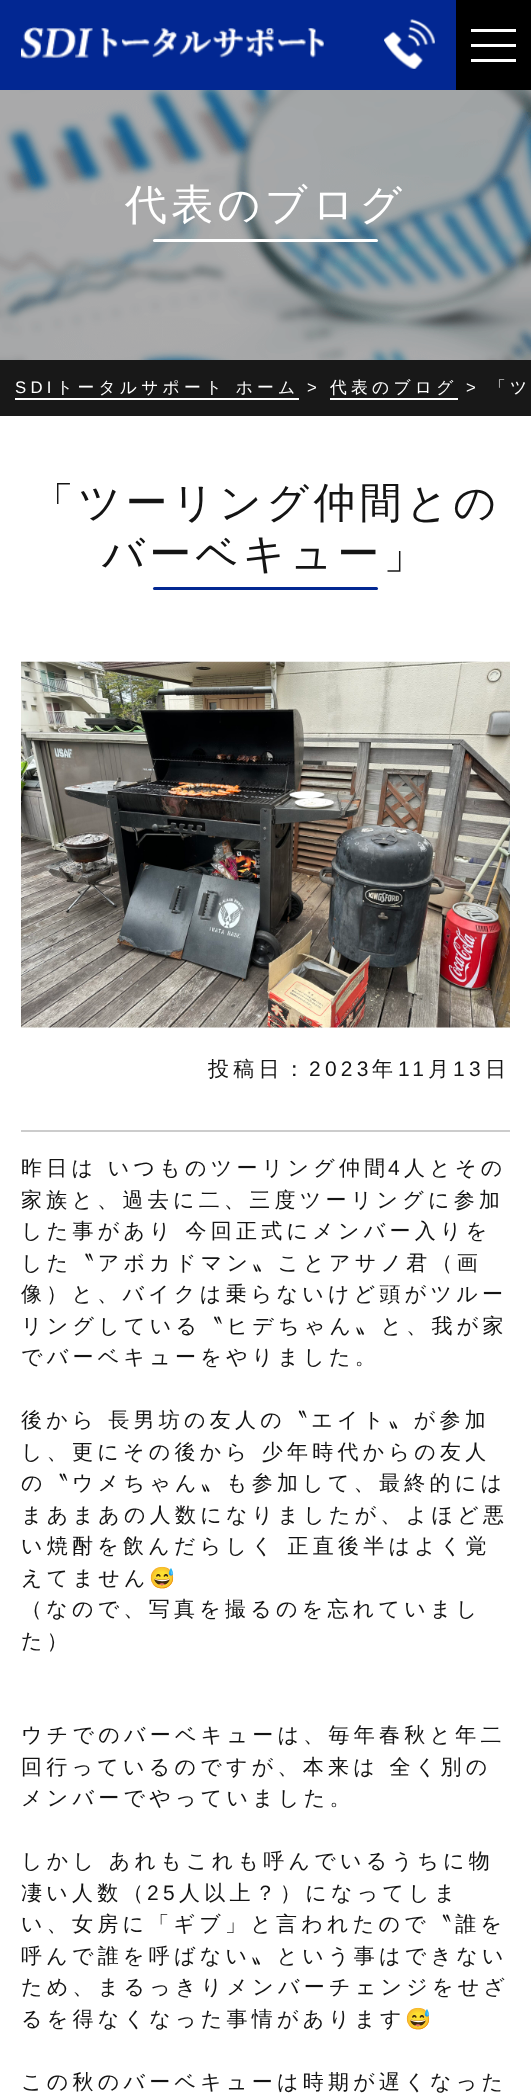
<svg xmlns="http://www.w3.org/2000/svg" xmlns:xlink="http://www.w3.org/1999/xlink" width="531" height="2100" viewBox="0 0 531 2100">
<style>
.cls-1{font:500 42px WenQuanYi Zen Hei;letter-spacing:4.25px;fill:#ffffff}
.cls-2{font:16.75px Liberation Sans;letter-spacing:4.25px;fill:#ffffff}
.cls-3{font:500 16.75px WenQuanYi Zen Hei;letter-spacing:4.25px;fill:#ffffff}
.cls-4{font:500 42px WenQuanYi Zen Hei;letter-spacing:4.25px;fill:#141414}
.cls-5{font:500 21px WenQuanYi Zen Hei;letter-spacing:4.25px;fill:#141414}
.cls-6{font:21px Liberation Sans;letter-spacing:4.25px;fill:#141414}
.cls-7{font:21px Noto Color Emoji;letter-spacing:4.25px;fill:#141414}
</style>
<rect width="100%" height="100%" fill="#ffffff"/>
<image xlink:href="image0.png" x="0" y="90" width="531" height="270"/>
<rect fill="#022792" x="0" y="0" width="456" height="90"/>
<image xlink:href="image1.png" x="21" y="27" width="303" height="32"/>
<image xlink:href="image2.png" x="384" y="19" width="51" height="50"/>
<rect fill="#000000" x="456" y="0" width="75" height="90"/>
<rect fill="#ffffff" x="471" y="29" width="45" height="3"/>
<rect fill="#ffffff" x="471" y="44" width="45" height="3"/>
<rect fill="#ffffff" x="471" y="59" width="45" height="3"/>
<rect fill="#ffffff" x="153" y="239" width="225" height="3" rx="1.5"/>
<rect fill="#181818" x="0" y="360" width="531" height="56"/>
<rect fill="#ffffff" x="15" y="398" width="284" height="2"/>
<rect fill="#ffffff" x="330" y="398" width="128" height="2"/>
<rect fill="#022792" x="153" y="587" width="225" height="3" rx="1.5"/>
<image xlink:href="image3.png" x="21" y="661" width="489" height="367"/>
<rect fill="#cccccc" x="21" y="1130" width="489" height="2"/>
<text class="cls-1" x="125" y="219">代表のブログ</text>
<text class="cls-2" x="15" y="393">SDI</text>
<text class="cls-3" x="56" y="393">トータルサポート ホーム</text>
<text class="cls-2" x="307" y="393">&gt;</text>
<text class="cls-3" x="330" y="393">代表のブログ</text>
<text class="cls-2" x="466" y="393">&gt;</text>
<text class="cls-3" x="489" y="393">「ツ</text>
<text class="cls-4" x="32" y="517">「ツーリング仲間との</text>
<text class="cls-4" x="102" y="568">バーベキュー」</text>
<text class="cls-5" x="208" y="1076">投稿日：</text>
<text class="cls-6" x="309" y="1076">2023</text>
<text class="cls-5" x="372" y="1076">年</text>
<text class="cls-6" x="398" y="1076">11</text>
<text class="cls-5" x="428" y="1076">月</text>
<text class="cls-6" x="453" y="1076">13</text>
<text class="cls-5" x="485" y="1076">日</text>
<text class="cls-5" x="21" y="1175">昨日は いつものツーリング仲間</text>
<text class="cls-6" x="388" y="1175">4</text>
<text class="cls-5" x="404" y="1175">人とその</text>
<text class="cls-5"><tspan x="21" y="1207">家族と、過去に二、三度ツーリングに参加</tspan><tspan x="21" y="1238">した事があり 今回正式にメンバー入りを</tspan><tspan x="21" y="1270">した〝アボカドマン〟ことアサノ君（画</tspan><tspan x="21" y="1301">像）と、バイクは乗らないけど頭がツルー</tspan><tspan x="21" y="1333">リングしている〝ヒデちゃん〟と、我が家</tspan><tspan x="21" y="1364">でバーベキューをやりました。</tspan></text>
<text class="cls-5"><tspan x="21" y="1427">後から 長男坊の友人の〝エイト〟が参加</tspan><tspan x="21" y="1459">し、更にその後から 少年時代からの友人</tspan><tspan x="21" y="1490">の〝ウメちゃん〟も参加して、最終的には</tspan><tspan x="21" y="1522">まあまあの人数になりましたが、よほど悪</tspan><tspan x="21" y="1553">い焼酎を飲んだらしく 正直後半はよく覚</tspan><tspan x="21" y="1585">えてません</tspan></text>
<text class="cls-7" x="149" y="1585">😅</text>
<text class="cls-5"><tspan x="21" y="1616">（なので、写真を撮るのを忘れていまし</tspan><tspan x="21" y="1648">た）</tspan></text>
<text class="cls-5"><tspan x="21" y="1742">ウチでのバーベキューは、毎年春秋と年二</tspan><tspan x="21" y="1774">回行っているのですが、本来は 全く別の</tspan><tspan x="21" y="1805">メンバーでやっていました。</tspan></text>
<text class="cls-5"><tspan x="21" y="1868">しかし あれもこれも呼んでいるうちに物</tspan><tspan x="21" y="1900">凄い人数（</tspan></text>
<text class="cls-6" x="147" y="1900">25</text>
<text class="cls-5" x="179" y="1900">人以上？）になってしま</text>
<text class="cls-5"><tspan x="21" y="1931">い、女房に「ギブ」と言われたので〝誰を</tspan><tspan x="21" y="1963">呼んで誰を呼ばない〟という事はできない</tspan><tspan x="21" y="1994">ため、まるっきりメンバーチェンジをせざ</tspan><tspan x="21" y="2026">るを得なくなった事情があります</tspan></text>
<text class="cls-7" x="405" y="2026">😅</text>
<text class="cls-5" x="21" y="2089">この秋のバーベキューは時期が遅くなった</text>
</svg>
